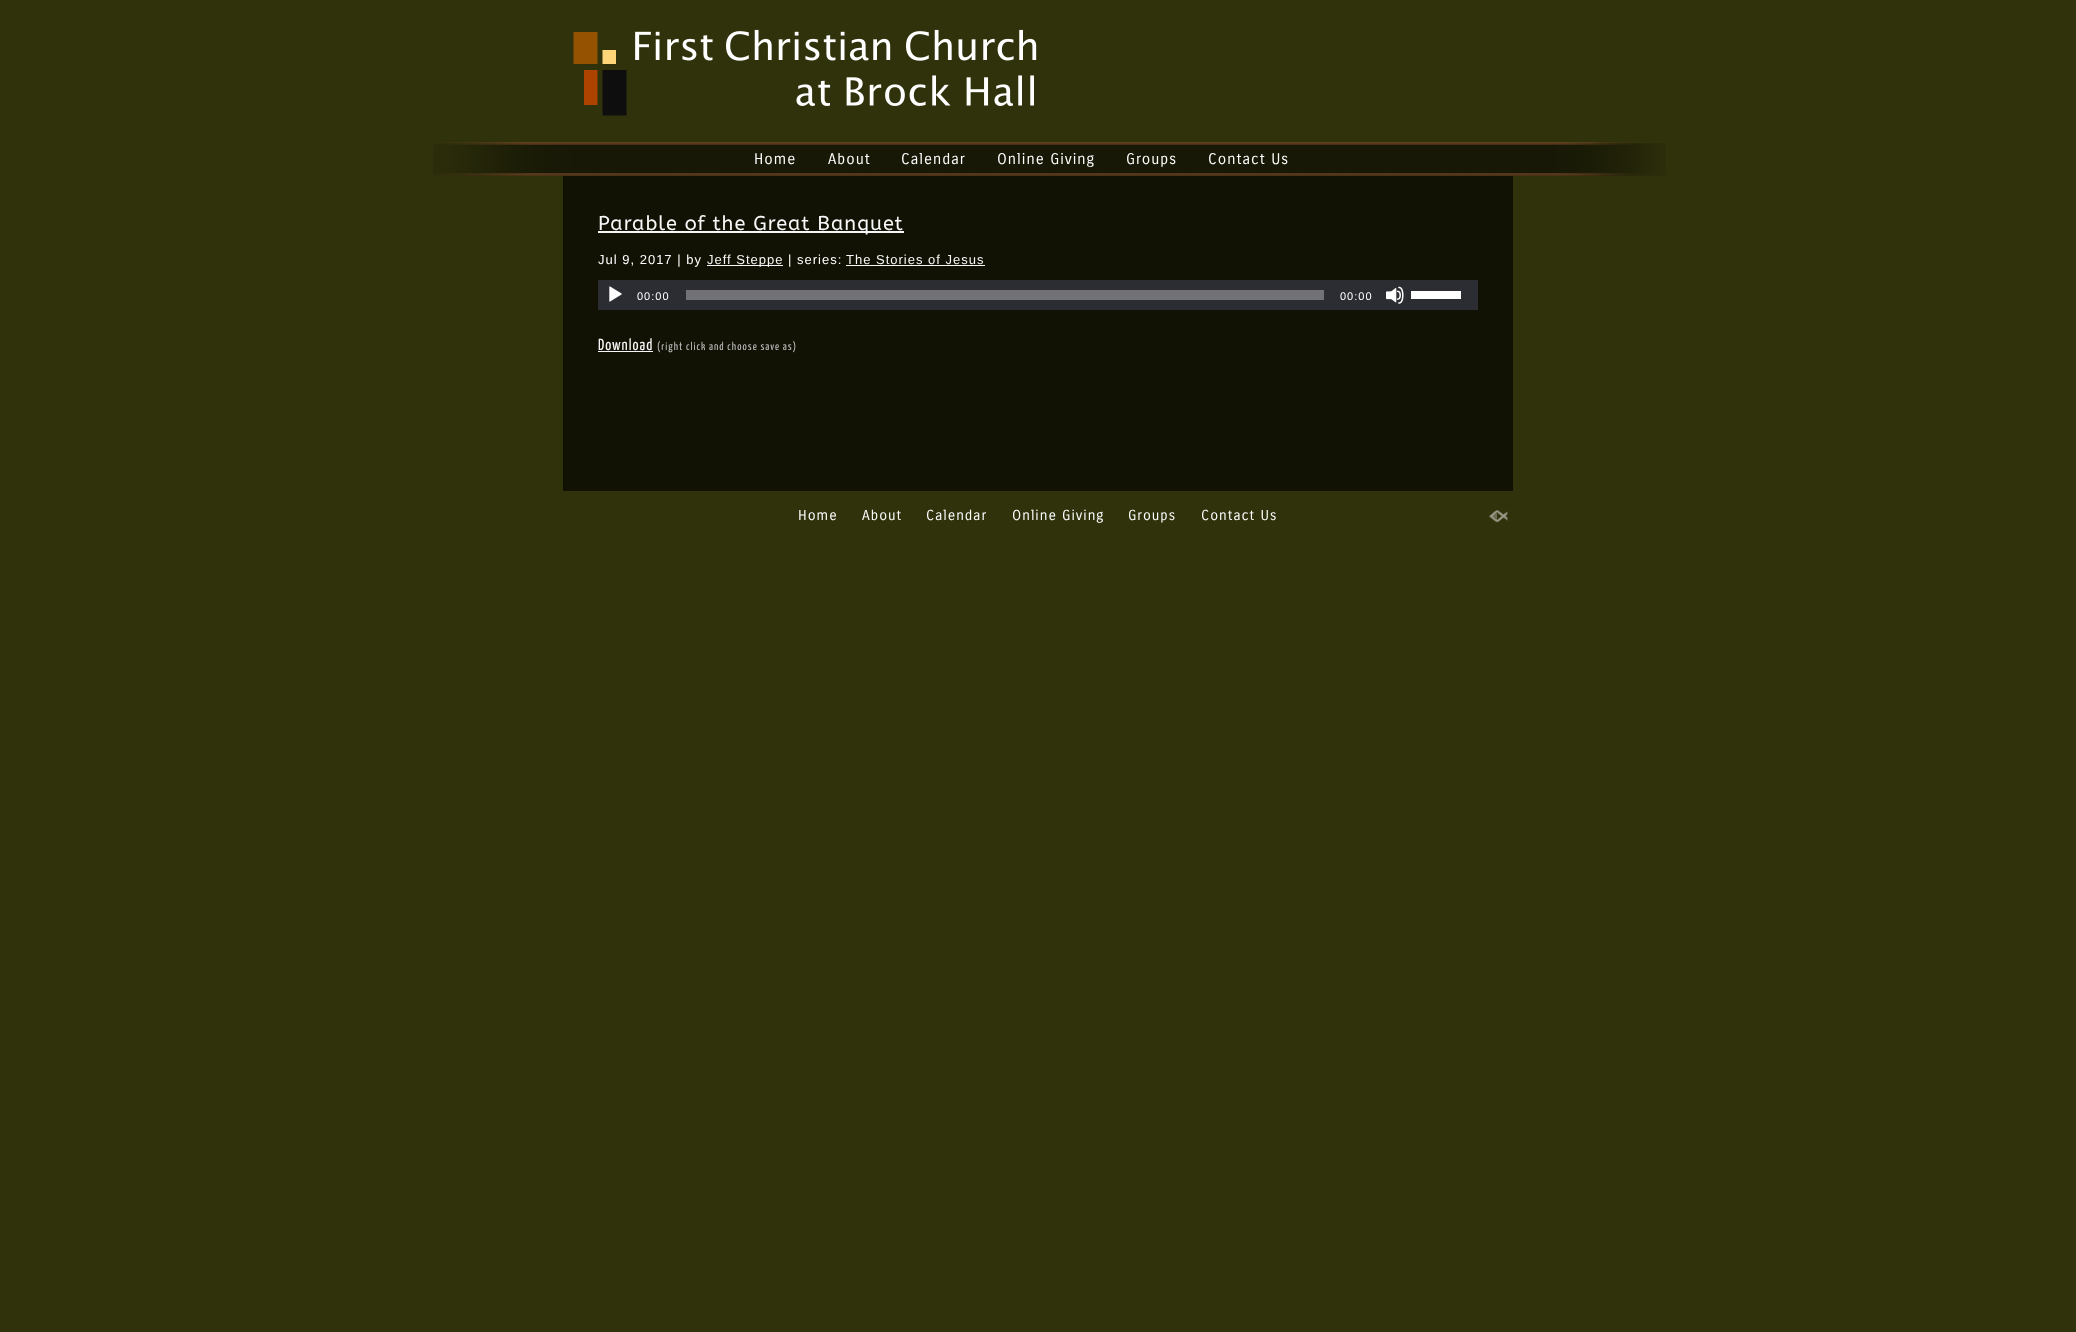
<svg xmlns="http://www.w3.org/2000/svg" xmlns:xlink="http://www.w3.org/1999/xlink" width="2076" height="1332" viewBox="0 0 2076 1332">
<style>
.cls-1{font:15px Carrois Gothic;letter-spacing:1px;fill:#ffffff}
.cls-2{font:20px ABeeZee;letter-spacing:1px;fill:#f7f7f7}
.cls-3{font:13px Liberation Sans;letter-spacing:1px;fill:#ffffff}
.cls-4{font:13px Liberation Sans;letter-spacing:1px;fill:#f7f7f7}
.cls-5{font:11px Liberation Sans;letter-spacing:1px;fill:#ffffff}
.cls-6{font:16px Yanone Kaffeesatz;letter-spacing:1px;fill:#f7f7f7}
.cls-7{font:11.25px Yanone Kaffeesatz;letter-spacing:1px;fill:#bbbbbb}
.cls-8{font:14px Carrois Gothic;letter-spacing:1px;fill:#ffffff}
</style>
<rect width="100%" height="100%" fill="#30320c"/>
<image xlink:href="image0.png" x="433" y="142" width="1233" height="34"/>
<image xlink:href="image1.png" x="573" y="29" width="464" height="87"/>
<rect fill="#111204" x="563" y="176" width="950" height="315"/>
<rect fill="#f7f7f7" x="598" y="231" width="306" height="2"/>
<rect fill="#faf5fa" x="707" y="265" width="76" height="1"/>
<rect fill="#faf5fa" x="846" y="265" width="139" height="1"/>
<rect fill="#2c2d33" x="598" y="280" width="880" height="30"/>
<image xlink:href="image2.png" x="609" y="286" width="13" height="16"/>
<rect fill="#727276" x="686" y="290" width="638" height="10"/>
<image xlink:href="image3.png" x="1386" y="286" width="18" height="18"/>
<rect fill="#ffffff" x="1411" y="291" width="50" height="8"/>
<rect fill="#faf5fa" x="598" y="351" width="55" height="1"/>
<image xlink:href="image4.png" x="1489" y="510" width="19" height="13"/>
<text class="cls-1" x="754" y="164">Home</text>
<text class="cls-1" x="828" y="164">About</text>
<text class="cls-1" x="901" y="164">Calendar</text>
<text class="cls-1" x="997" y="164">Online Giving</text>
<text class="cls-1" x="1126" y="164">Groups</text>
<text class="cls-1" x="1208" y="164">Contact Us</text>
<text class="cls-2" x="598" y="230">Parable of the Great Banquet</text>
<text class="cls-3" x="598" y="264">Jul 9, 2017 | by</text>
<text class="cls-4" x="707" y="264">Jeff Steppe</text>
<text class="cls-3" x="788" y="264">| series:</text>
<text class="cls-4" x="846" y="264">The Stories of Jesus</text>
<text class="cls-5" x="637" y="300">00:00</text>
<text class="cls-5" x="1340" y="300">00:00</text>
<text class="cls-6" x="598" y="350">Download</text>
<text class="cls-7" x="657" y="350">(right click and choose save as)</text>
<text class="cls-8" x="798" y="520">Home</text>
<text class="cls-8" x="862" y="520">About</text>
<text class="cls-8" x="926" y="520">Calendar</text>
<text class="cls-8" x="1012" y="520">Online Giving</text>
<text class="cls-8" x="1128" y="520">Groups</text>
<text class="cls-8" x="1201" y="520">Contact Us</text>
</svg>
